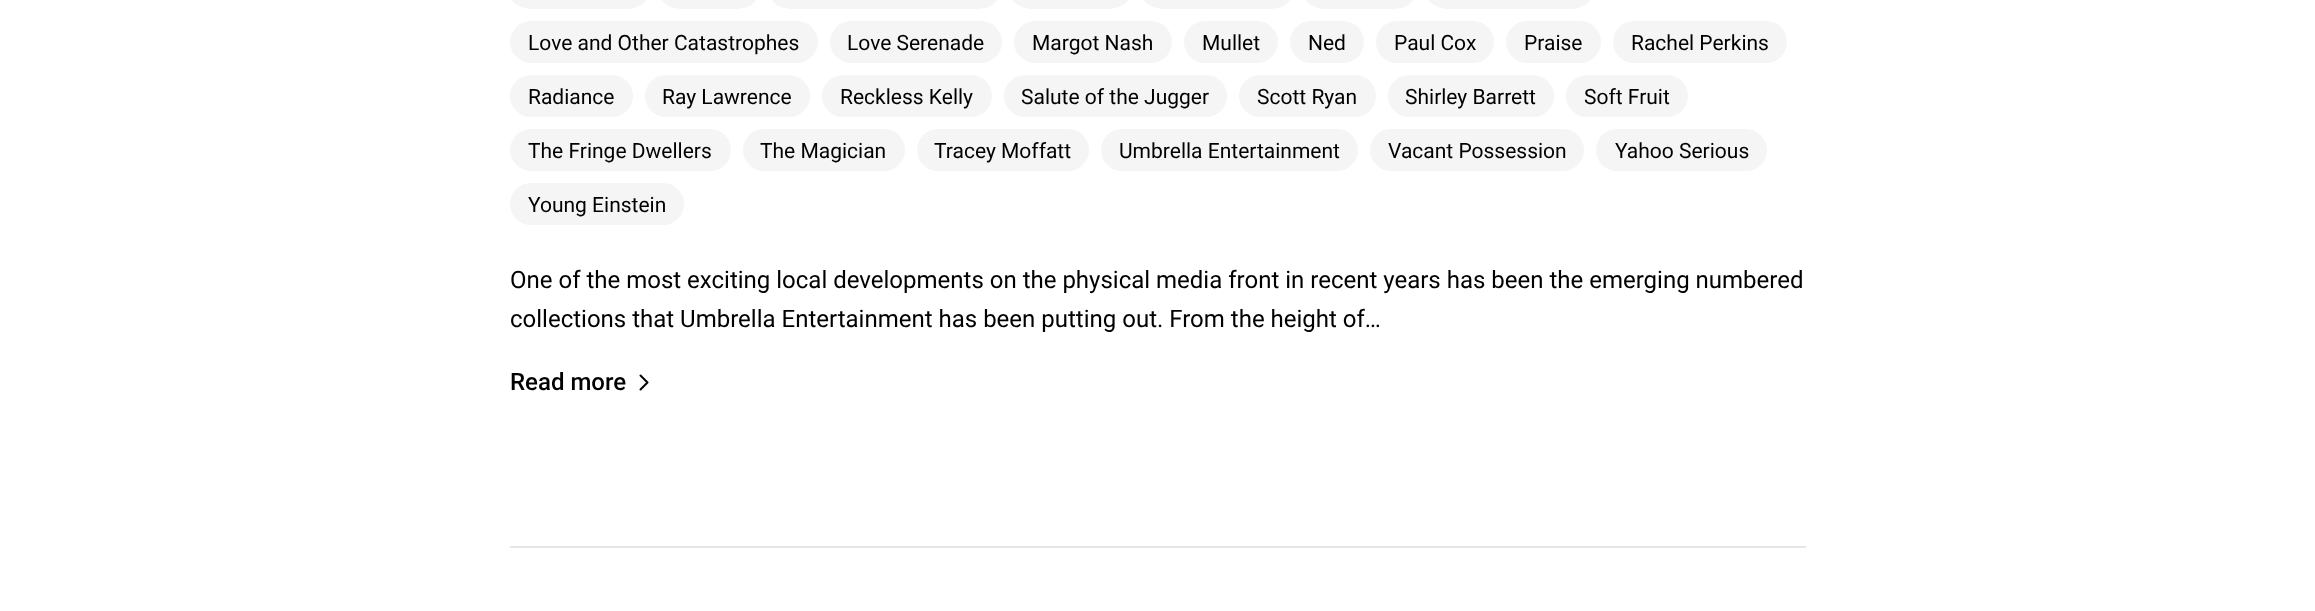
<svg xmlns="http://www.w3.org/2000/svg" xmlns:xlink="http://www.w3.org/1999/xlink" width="2315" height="611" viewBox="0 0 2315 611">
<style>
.cls-1{font:21px Roboto;fill:#000000}
.cls-2{font:24px Roboto;fill:#000000}
.cls-3{font:500 24px Roboto;fill:#000000}
</style>
<rect width="100%" height="100%" fill="#ffffff"/>
<rect fill="#f5f5f5" x="510" y="-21" width="138" height="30" rx="21"/>
<rect fill="#f5f5f5" x="660" y="-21" width="98" height="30" rx="21"/>
<rect fill="#f5f5f5" x="770" y="-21" width="229" height="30" rx="21"/>
<rect fill="#f5f5f5" x="1011" y="-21" width="119" height="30" rx="21"/>
<rect fill="#f5f5f5" x="1142" y="-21" width="150" height="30" rx="21"/>
<rect fill="#f5f5f5" x="1304" y="-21" width="111" height="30" rx="21"/>
<rect fill="#f5f5f5" x="1427" y="-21" width="165" height="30" rx="21"/>
<rect fill="#f5f5f5" x="510" y="21" width="308" height="42" rx="21"/>
<rect fill="#f5f5f5" x="830" y="21" width="172" height="42" rx="21"/>
<rect fill="#f5f5f5" x="1014" y="21" width="158" height="42" rx="21"/>
<rect fill="#f5f5f5" x="1184" y="21" width="94" height="42" rx="21"/>
<rect fill="#f5f5f5" x="1290" y="21" width="74" height="42" rx="21"/>
<rect fill="#f5f5f5" x="1376" y="21" width="118" height="42" rx="21"/>
<rect fill="#f5f5f5" x="1506" y="21" width="95" height="42" rx="21"/>
<rect fill="#f5f5f5" x="1613" y="21" width="174" height="42" rx="21"/>
<rect fill="#f5f5f5" x="510" y="75" width="123" height="42" rx="21"/>
<rect fill="#f5f5f5" x="645" y="75" width="165" height="42" rx="21"/>
<rect fill="#f5f5f5" x="822" y="75" width="170" height="42" rx="21"/>
<rect fill="#f5f5f5" x="1004" y="75" width="223" height="42" rx="21"/>
<rect fill="#f5f5f5" x="1239" y="75" width="137" height="42" rx="21"/>
<rect fill="#f5f5f5" x="1388" y="75" width="166" height="42" rx="21"/>
<rect fill="#f5f5f5" x="1566" y="75" width="122" height="42" rx="21"/>
<rect fill="#f5f5f5" x="510" y="129" width="221" height="42" rx="21"/>
<rect fill="#f5f5f5" x="743" y="129" width="162" height="42" rx="21"/>
<rect fill="#f5f5f5" x="917" y="129" width="172" height="42" rx="21"/>
<rect fill="#f5f5f5" x="1101" y="129" width="257" height="42" rx="21"/>
<rect fill="#f5f5f5" x="1370" y="129" width="214" height="42" rx="21"/>
<rect fill="#f5f5f5" x="1596" y="129" width="171" height="42" rx="21"/>
<rect fill="#f5f5f5" x="510" y="183" width="174" height="42" rx="21"/>
<path fill="none" stroke="#050505" stroke-width="2" stroke-linecap="round" stroke-linejoin="round" d="M640.5 375.5L647.5 382.5L640.5 389.5"/>
<rect fill="#e6e6e6" x="510" y="546" width="1296" height="2"/>
<text class="cls-1" x="528" y="50">Love and Other Catastrophes</text>
<text class="cls-1" x="847" y="50">Love Serenade</text>
<text class="cls-1" x="1032" y="50">Margot Nash</text>
<text class="cls-1" x="1202" y="50">Mullet</text>
<text class="cls-1" x="1308" y="50">Ned</text>
<text class="cls-1" x="1394" y="50">Paul Cox</text>
<text class="cls-1" x="1524" y="50">Praise</text>
<text class="cls-1" x="1631" y="50">Rachel Perkins</text>
<text class="cls-1" x="528" y="104">Radiance</text>
<text class="cls-1" x="662" y="104">Ray Lawrence</text>
<text class="cls-1" x="840" y="104">Reckless Kelly</text>
<text class="cls-1" x="1021" y="104">Salute of the Jugger</text>
<text class="cls-1" x="1257" y="104">Scott Ryan</text>
<text class="cls-1" x="1405" y="104">Shirley Barrett</text>
<text class="cls-1" x="1584" y="104">Soft Fruit</text>
<text class="cls-1" x="528" y="158">The Fringe Dwellers</text>
<text class="cls-1" x="760" y="158">The Magician</text>
<text class="cls-1" x="934" y="158">Tracey Moffatt</text>
<text class="cls-1" x="1119" y="158">Umbrella Entertainment</text>
<text class="cls-1" x="1388" y="158">Vacant Possession</text>
<text class="cls-1" x="1615" y="158">Yahoo Serious</text>
<text class="cls-1" x="528" y="212">Young Einstein</text>
<text class="cls-2"><tspan x="510" y="288">One of the most exciting local developments on the physical media front in recent years has been the emerging numbered</tspan><tspan x="510" y="327">collections that Umbrella Entertainment has been putting out. From the height of…</tspan></text>
<text class="cls-3" x="510" y="390">Read more</text>
</svg>
